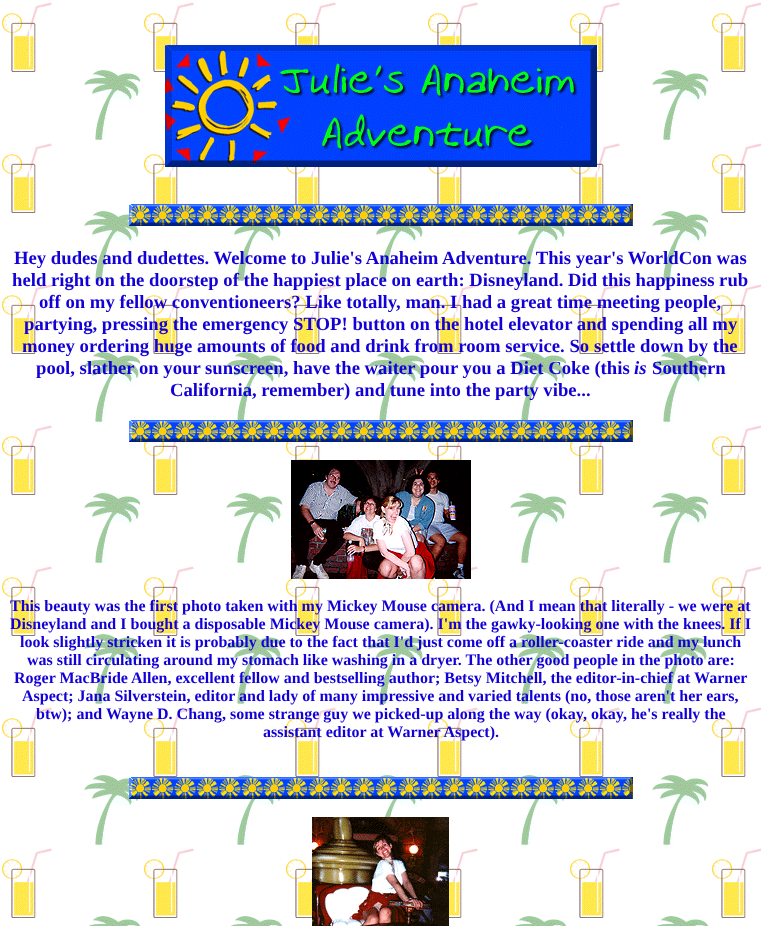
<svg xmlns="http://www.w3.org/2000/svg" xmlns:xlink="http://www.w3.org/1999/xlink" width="761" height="926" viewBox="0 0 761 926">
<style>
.cls-1{font:bold 18.7px Liberation Serif;fill:#1300d6}
.cls-2{font:italic bold 18.7px Liberation Serif;fill:#1300d6}
.cls-3{font:bold 16px Liberation Serif;fill:#1300d6}
</style>
<rect width="100%" height="100%" fill="#ffffff"/>
<image xlink:href="image0.png" x="2" y="2" width="759" height="924"/>
<image xlink:href="image1.png" x="165" y="45" width="432" height="122"/>
<image xlink:href="image2.png" x="129" y="204" width="504" height="22"/>
<image xlink:href="image2.png" x="129" y="420" width="504" height="22"/>
<image xlink:href="image3.png" x="291" y="460" width="180" height="119"/>
<image xlink:href="image2.png" x="129" y="777" width="504" height="22"/>
<image xlink:href="image4.png" x="312" y="817" width="137" height="109"/>
<text class="cls-1" x="14" y="264">Hey dudes and dudettes. Welcome to Julie's Anaheim Adventure. This year's WorldCon was</text>
<text class="cls-1" x="12" y="286">held right on the doorstep of the happiest place on earth: Disneyland. Did this happiness rub</text>
<text class="cls-1" x="39" y="308">off on my fellow conventioneers? Like totally, man. I had a great time meeting people,</text>
<text class="cls-1" x="24" y="330">partying, pressing the emergency STOP! button on the hotel elevator and spending all my</text>
<text class="cls-1" x="22" y="352">money ordering huge amounts of food and drink from room service. So settle down by the</text>
<text class="cls-1" x="36" y="374">pool, slather on your sunscreen, have the waiter pour you a Diet Coke (this</text>
<text class="cls-2" x="634" y="374">is</text>
<text class="cls-1" x="652" y="374">Southern</text>
<text class="cls-1" x="170" y="396">California, remember) and tune into the party vibe...</text>
<text class="cls-3"><tspan x="10" y="611">This beauty was the first photo taken with my Mickey Mouse camera. (And I mean that literally - we were at</tspan><tspan x="10" y="629">Disneyland and I bought a disposable Mickey Mouse camera). I'm the gawky-looking one with the knees. If I</tspan></text>
<text class="cls-3" x="20" y="647">look slightly stricken it is probably due to the fact that I'd just come off a roller-coaster ride and my lunch</text>
<text class="cls-3" x="27" y="665">was still circulating around my stomach like washing in a dryer. The other good people in the photo are:</text>
<text class="cls-3" x="14" y="683">Roger MacBride Allen, excellent fellow and bestselling author; Betsy Mitchell, the editor-in-chief at Warner</text>
<text class="cls-3" x="22" y="701">Aspect; Jana Silverstein, editor and lady of many impressive and varied talents (no, those aren't her ears,</text>
<text class="cls-3" x="36" y="719">btw); and Wayne D. Chang, some strange guy we picked-up along the way (okay, okay, he's really the</text>
<text class="cls-3" x="263" y="737">assistant editor at Warner Aspect).</text>
</svg>
